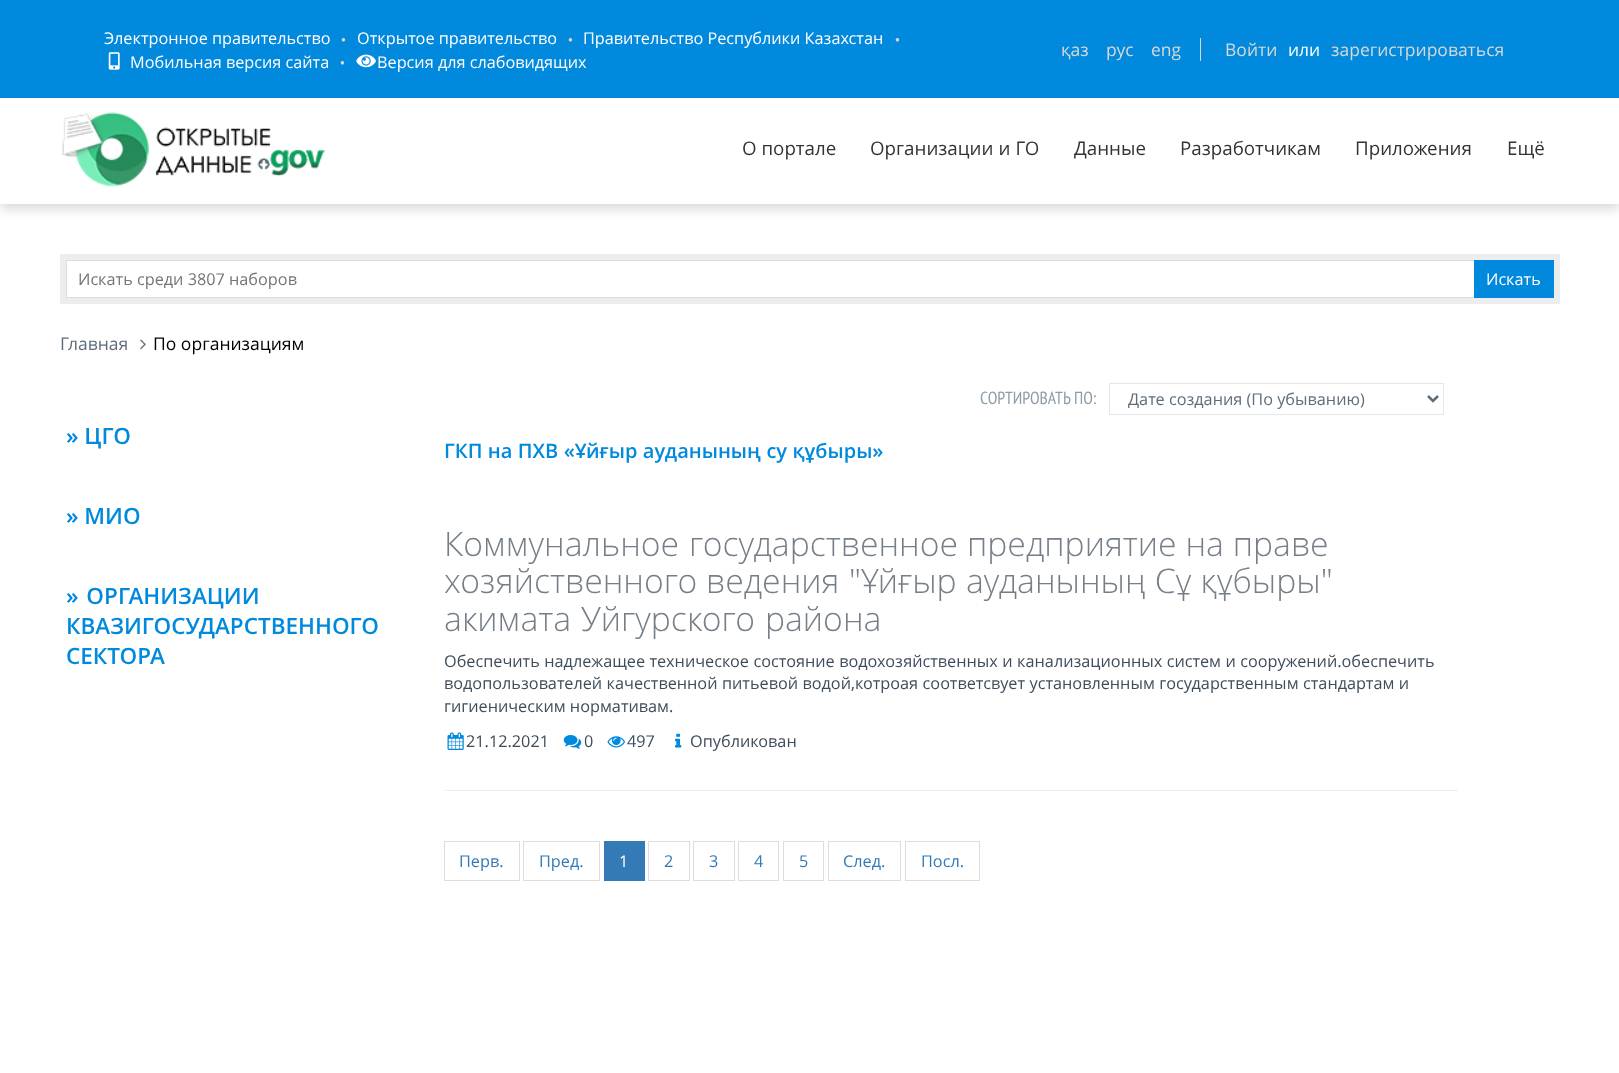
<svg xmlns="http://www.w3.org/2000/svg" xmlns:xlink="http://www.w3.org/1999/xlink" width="1619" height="1073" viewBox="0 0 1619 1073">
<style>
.cls-1{font:16.25px Open Sans;fill:#ffffff}
.cls-2{font:8px Liberation Sans;fill:#d8d8d8}
.cls-3{font:17.5px Open Sans;fill:#d8d8d8}
.cls-4{font:17.5px Open Sans;fill:#ffffff}
.cls-5{font:18.75px Open Sans;fill:#333333}
.cls-6{font:16.25px Open Sans;fill:#757575}
.cls-7{font:17.5px Open Sans;fill:#5f6d7b}
.cls-8{font:17.5px Open Sans;fill:#000000}
.cls-9{font:600 22.5px Open Sans;fill:#0089dd}
.cls-10{font:17.5px PT Sans Narrow;fill:#8e9ca8}
.cls-11{font:16.25px Open Sans;fill:#5f6d7b}
.cls-12{font:600 20px Open Sans;fill:#0089dd}
.cls-13{font:300 33.75px Open Sans;fill:#767f88}
.cls-14{font:16.25px Open Sans;fill:#3e4d5c}
.cls-15{font:16.25px Open Sans;fill:#337ab7}
</style>
<rect width="100%" height="100%" fill="#ffffff"/>
<rect fill="#000000" fill-opacity="0.15" filter="blur(6px)" x="0" y="5" width="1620" height="204"/>
<rect fill="#ffffff" x="0" y="98" width="1619" height="106"/>
<rect fill="#0089dd" x="0" y="0" width="1619" height="98"/>
<image xlink:href="image0.png" x="108" y="52" width="12" height="18"/>
<image xlink:href="image1.png" x="356" y="54" width="20" height="14"/>
<rect fill="#d8d8d8" x="1200" y="38" width="1" height="23"/>
<image xlink:href="image2.png" x="62" y="112" width="264" height="75"/>
<rect fill="none" stroke="#ebedef" stroke-width="6" x="63" y="257" width="1494" height="44"/>
<rect fill="none" stroke="#dadbdb" x="66.5" y="260.5" width="1487" height="37"/>
<rect fill="#0089dd" x="1474" y="260" width="80" height="38"/>
<image xlink:href="image3.png" x="140" y="339" width="6" height="11"/>
<rect fill="none" stroke="#e4e6e8" x="1109.5" y="383.5" width="334" height="31"/>
<path fill="none" stroke="#5f6d7b" stroke-width="2.5" d="M1428 396L1433 401L1438 396"/>
<image xlink:href="image4.png" x="447" y="732" width="17" height="18"/>
<image xlink:href="image5.png" x="563" y="735" width="19" height="14"/>
<image xlink:href="image6.png" x="607" y="736" width="18" height="12"/>
<image xlink:href="image7.png" x="675" y="733" width="7" height="15"/>
<rect fill="#eeeeee" x="445" y="790" width="1013" height="1"/>
<rect fill="none" stroke="#dddddd" x="444.5" y="841.5" width="75" height="39"/>
<rect fill="none" stroke="#dddddd" x="523.5" y="841.5" width="76" height="39"/>
<rect fill="#337ab7" x="604" y="841" width="41" height="40"/>
<rect fill="none" stroke="#dddddd" x="648.5" y="841.5" width="41" height="39"/>
<rect fill="none" stroke="#dddddd" x="693.5" y="841.5" width="41" height="39"/>
<rect fill="none" stroke="#dddddd" x="738.5" y="841.5" width="40" height="39"/>
<rect fill="none" stroke="#dddddd" x="783.5" y="841.5" width="40" height="39"/>
<rect fill="none" stroke="#dddddd" x="828.5" y="841.5" width="72" height="39"/>
<rect fill="none" stroke="#dddddd" x="905.5" y="841.5" width="74" height="39"/>
<text class="cls-1" x="104" y="44">Электронное правительство</text>
<text class="cls-2" x="341" y="42">●</text>
<text class="cls-1" x="357" y="44">Открытое правительство</text>
<text class="cls-2" x="568" y="42">●</text>
<text class="cls-1" x="583" y="44">Правительство Республики Казахстан</text>
<text class="cls-2" x="895" y="42">●</text>
<text class="cls-1" x="130" y="68">Мобильная версия сайта</text>
<text class="cls-2" x="340" y="65">●</text>
<text class="cls-1" x="377" y="68">Версия для слабовидящих</text>
<text class="cls-3" x="1061" y="56">қаз</text>
<text class="cls-3" x="1106" y="56">рус</text>
<text class="cls-3" x="1151" y="56">eng</text>
<text class="cls-3" x="1225" y="56">Войти</text>
<text class="cls-4" x="1288" y="56">или</text>
<text class="cls-3" x="1331" y="56">зарегистрироваться</text>
<text class="cls-5" x="742" y="155">О портале</text>
<text class="cls-5" x="870" y="155" word-spacing="0.25">Организации и ГО</text>
<text class="cls-5" x="1074" y="155">Данные</text>
<text class="cls-5" x="1180" y="155">Разработчикам</text>
<text class="cls-5" x="1355" y="155">Приложения</text>
<text class="cls-5" x="1507" y="155">Ещё</text>
<text class="cls-6" x="78" y="285">Искать среди 3807 наборов</text>
<text class="cls-1" x="1486" y="285">Искать</text>
<text class="cls-7" x="60" y="350">Главная</text>
<text class="cls-8" x="153" y="350">По организациям</text>
<text class="cls-9" x="66" y="444">» ЦГО</text>
<text class="cls-9" x="66" y="524">» МИО</text>
<text class="cls-9"><tspan x="66" y="604" word-spacing="2">» ОРГАНИЗАЦИИ</tspan><tspan x="66" y="634">КВАЗИГОСУДАРСТВЕННОГО</tspan><tspan x="66" y="664">СЕКТОРА</tspan></text>
<text class="cls-10" x="980" y="404">СОРТИРОВАТЬ ПО:</text>
<text class="cls-11" x="1128" y="405">Дате создания (По убыванию)</text>
<text class="cls-12" x="444" y="458" word-spacing="0.25">ГКП на ПХВ «Ұйғыр ауданының су құбыры»</text>
<text class="cls-13" x="444" y="556" word-spacing="1">Коммунальное государственное</text>
<text class="cls-13" x="967" y="556">предприятие на праве</text>
<text class="cls-13" x="444" y="593">хозяйственного ведения</text>
<text class="cls-13" x="849" y="593" word-spacing="0.5">"Ұйғыр ауданының Сұ құбыры"</text>
<text class="cls-13" x="444" y="631" word-spacing="1">акимата Уйгурского района</text>
<text class="cls-14"><tspan x="444" y="667" word-spacing="0.25">Обеспечить надлежащее техническое состояние водохозяйственных и канализационных систем и сооружений.обеспечить</tspan><tspan x="444" y="689" word-spacing="0.25">водопользователей качественной питьевой водой,котроая соответсвует установленным государственным стандартам и</tspan><tspan x="444" y="712">гигиеническим нормативам.</tspan></text>
<text class="cls-14" x="466" y="747">21.12.2021</text>
<text class="cls-14" x="584" y="747">0</text>
<text class="cls-14" x="627" y="747">497</text>
<text class="cls-14" x="690" y="747">Опубликован</text>
<text class="cls-15" x="459" y="867">Перв.</text>
<text class="cls-15" x="539" y="867">Пред.</text>
<text class="cls-1" x="619" y="867">1</text>
<text class="cls-15" x="664" y="867">2</text>
<text class="cls-15" x="709" y="867">3</text>
<text class="cls-15" x="754" y="867">4</text>
<text class="cls-15" x="799" y="867">5</text>
<text class="cls-15" x="843" y="867">След.</text>
<text class="cls-15" x="921" y="867">Посл.</text>
</svg>
